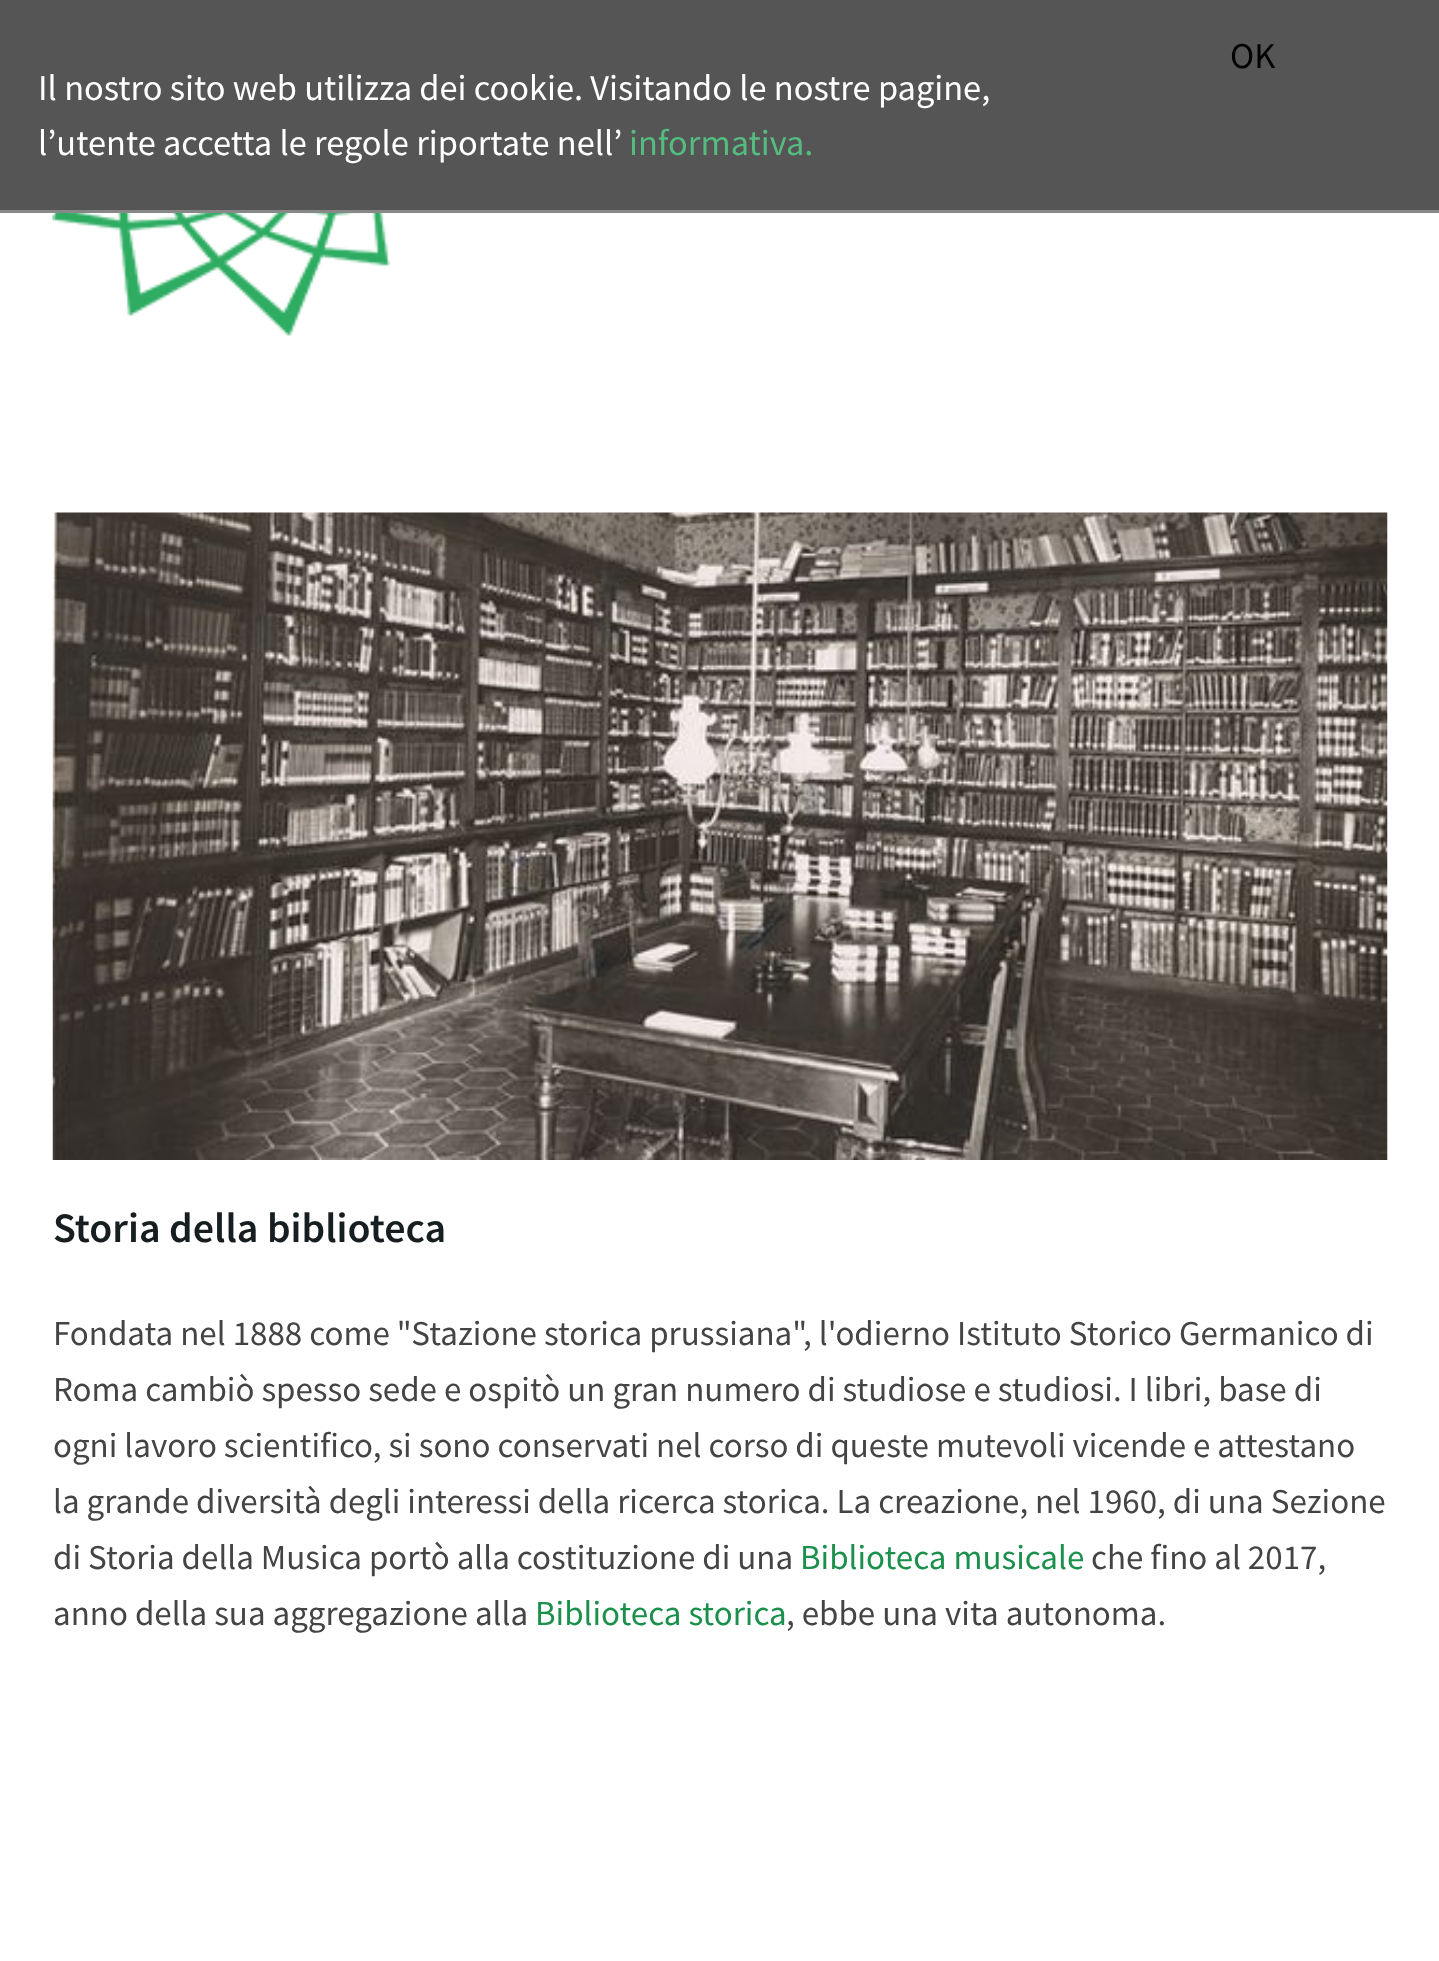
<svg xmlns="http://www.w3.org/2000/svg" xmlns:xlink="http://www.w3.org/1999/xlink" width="1439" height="1961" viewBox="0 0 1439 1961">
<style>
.cls-1{font:36.4px Source Sans Pro;fill:#000000}
.cls-2{font:36.4px Source Sans Pro;fill:#ffffff}
.cls-3{font:36.4px Source Sans Pro;fill:#55bc80}
.cls-4{font:600 42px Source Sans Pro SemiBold;fill:#161e21}
.cls-5{font:35px Source Sans Pro;fill:#444444}
.cls-6{font:35px Source Sans Pro;fill:#1b8f4c}
</style>
<rect width="100%" height="100%" fill="#ffffff"/>
<rect fill="#555555" x="0" y="0" width="1439" height="210"/>
<rect fill="#888888" x="0" y="210" width="1439" height="3"/>
<image xlink:href="image0.png" x="52" y="213" width="339" height="123"/>
<image xlink:href="image1.png" x="52" y="512" width="1336" height="648"/>
<text class="cls-1" x="1230" y="68">OK</text>
<text class="cls-2"><tspan x="38" y="100">Il nostro sito web utilizza dei cookie. Visitando le nostre pagine,</tspan><tspan x="38" y="155">l’utente accetta le regole riportate nell’</tspan></text>
<text class="cls-3" x="629" y="155">informativa.</text>
<text class="cls-4" x="53" y="1242">Storia della biblioteca</text>
<text class="cls-5"><tspan x="53" y="1345">Fondata nel 1888 come "Stazione storica prussiana", l'odierno Istituto Storico Germanico di</tspan><tspan x="53" y="1401">Roma cambiò spesso sede e ospitò un gran numero di studiose e studiosi. I libri, base di</tspan><tspan x="53" y="1457">ogni lavoro scientifico, si sono conservati nel corso di queste mutevoli vicende e attestano</tspan><tspan x="53" y="1513">la grande diversità degli interessi della ricerca storica. La creazione, nel 1960, di una Sezione</tspan><tspan x="53" y="1569">di Storia della Musica portò alla costituzione di una</tspan></text>
<text class="cls-6" x="800" y="1569">Biblioteca musicale</text>
<text class="cls-5" x="1091" y="1569">che fino al 2017,</text>
<text class="cls-5" x="53" y="1625">anno della sua aggregazione alla</text>
<text class="cls-6" x="535" y="1625">Biblioteca storica</text>
<text class="cls-5" x="786" y="1625">, ebbe una vita autonoma.</text>
</svg>
